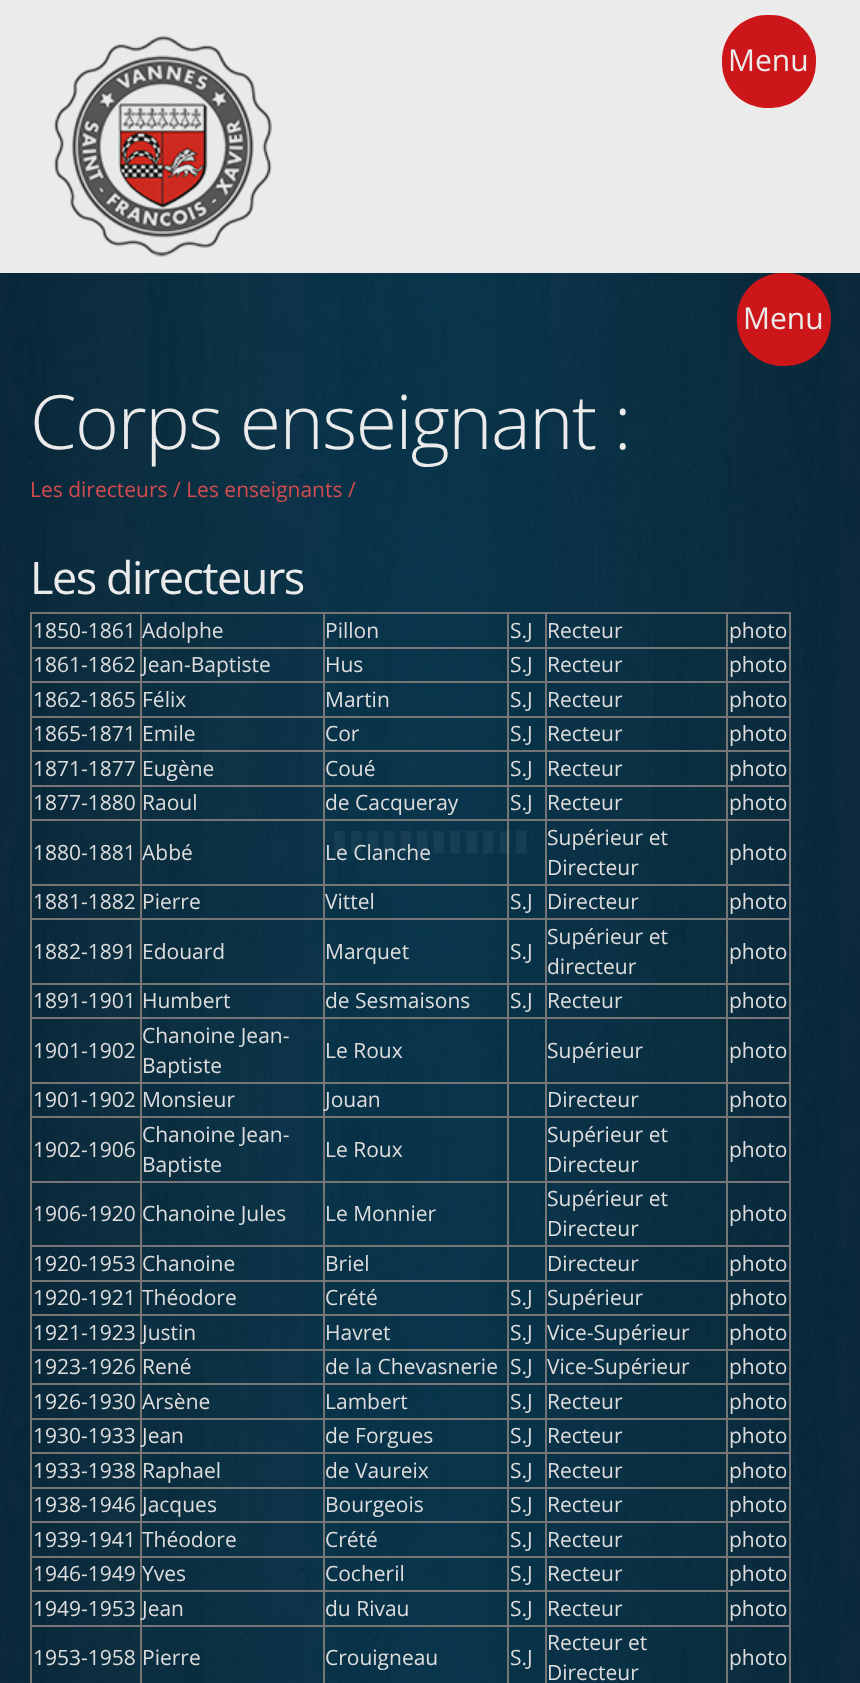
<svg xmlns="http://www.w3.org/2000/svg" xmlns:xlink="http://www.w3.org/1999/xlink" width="860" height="1683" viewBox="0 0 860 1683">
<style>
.cls-1{font:30px Open Sans;fill:#ebebeb}
.cls-2{font:300 75px Open Sans;letter-spacing:-1.5px;fill:#ebebeb}
.cls-3{font:21px Open Sans;fill:#d54c4f}
.cls-4{font:45px Open Sans;letter-spacing:-1.5px;fill:#ebebeb}
.cls-5{font:21px Open Sans;fill:#dddddd}
</style>
<rect width="100%" height="100%" fill="#ebebeb"/>
<image xlink:href="image0.png" x="53" y="35" width="219" height="222"/>
<rect fill="#cd1619" x="722" y="15" width="94" height="93" rx="45"/>
<image xlink:href="image1.png" x="0" y="273" width="860" height="1410"/>
<rect fill="#cd1619" x="737" y="273" width="94" height="93" rx="45"/>
<rect fill="#767676" x="30" y="612" width="761" height="2"/>
<rect fill="#767676" x="789" y="612" width="2" height="1071"/>
<rect fill="#767676" x="30" y="612" width="2" height="1071"/>
<rect fill="#767676" x="726" y="647" width="65" height="2"/>
<rect fill="#767676" x="726" y="681" width="65" height="2"/>
<rect fill="#767676" x="726" y="716" width="65" height="2"/>
<rect fill="#767676" x="726" y="750" width="65" height="2"/>
<rect fill="#767676" x="726" y="785" width="65" height="2"/>
<rect fill="#767676" x="726" y="819" width="65" height="2"/>
<rect fill="#767676" x="726" y="884" width="65" height="2"/>
<rect fill="#767676" x="726" y="918" width="65" height="2"/>
<rect fill="#767676" x="726" y="983" width="65" height="2"/>
<rect fill="#767676" x="726" y="1017" width="65" height="2"/>
<rect fill="#767676" x="726" y="1082" width="65" height="2"/>
<rect fill="#767676" x="726" y="1116" width="65" height="2"/>
<rect fill="#767676" x="726" y="1181" width="65" height="2"/>
<rect fill="#767676" x="726" y="1245" width="65" height="2"/>
<rect fill="#767676" x="726" y="1280" width="65" height="2"/>
<rect fill="#767676" x="726" y="1314" width="65" height="2"/>
<rect fill="#767676" x="726" y="1349" width="65" height="2"/>
<rect fill="#767676" x="726" y="1383" width="65" height="2"/>
<rect fill="#767676" x="726" y="1418" width="65" height="2"/>
<rect fill="#767676" x="726" y="1452" width="65" height="2"/>
<rect fill="#767676" x="726" y="1487" width="65" height="2"/>
<rect fill="#767676" x="726" y="1521" width="65" height="2"/>
<rect fill="#767676" x="726" y="1556" width="65" height="2"/>
<rect fill="#767676" x="726" y="1590" width="65" height="2"/>
<rect fill="#767676" x="726" y="1625" width="65" height="2"/>
<rect fill="#767676" x="726" y="1625" width="2" height="58"/>
<rect fill="#767676" x="545" y="1625" width="183" height="2"/>
<rect fill="#767676" x="726" y="1590" width="2" height="36"/>
<rect fill="#767676" x="545" y="1590" width="183" height="2"/>
<rect fill="#767676" x="726" y="1556" width="2" height="36"/>
<rect fill="#767676" x="545" y="1556" width="183" height="2"/>
<rect fill="#767676" x="726" y="1521" width="2" height="36"/>
<rect fill="#767676" x="545" y="1521" width="183" height="2"/>
<rect fill="#767676" x="726" y="1487" width="2" height="36"/>
<rect fill="#767676" x="545" y="1487" width="183" height="2"/>
<rect fill="#767676" x="726" y="1452" width="2" height="36"/>
<rect fill="#767676" x="545" y="1452" width="183" height="2"/>
<rect fill="#767676" x="726" y="1418" width="2" height="36"/>
<rect fill="#767676" x="545" y="1418" width="183" height="2"/>
<rect fill="#767676" x="726" y="1383" width="2" height="36"/>
<rect fill="#767676" x="545" y="1383" width="183" height="2"/>
<rect fill="#767676" x="726" y="1349" width="2" height="36"/>
<rect fill="#767676" x="545" y="1349" width="183" height="2"/>
<rect fill="#767676" x="726" y="1314" width="2" height="36"/>
<rect fill="#767676" x="545" y="1314" width="183" height="2"/>
<rect fill="#767676" x="726" y="1280" width="2" height="36"/>
<rect fill="#767676" x="545" y="1280" width="183" height="2"/>
<rect fill="#767676" x="726" y="1245" width="2" height="36"/>
<rect fill="#767676" x="545" y="1245" width="183" height="2"/>
<rect fill="#767676" x="726" y="1181" width="2" height="66"/>
<rect fill="#767676" x="545" y="1181" width="183" height="2"/>
<rect fill="#767676" x="726" y="1116" width="2" height="66"/>
<rect fill="#767676" x="545" y="1116" width="183" height="2"/>
<rect fill="#767676" x="726" y="1082" width="2" height="36"/>
<rect fill="#767676" x="545" y="1082" width="183" height="2"/>
<rect fill="#767676" x="726" y="1017" width="2" height="66"/>
<rect fill="#767676" x="545" y="1017" width="183" height="2"/>
<rect fill="#767676" x="726" y="983" width="2" height="36"/>
<rect fill="#767676" x="545" y="983" width="183" height="2"/>
<rect fill="#767676" x="726" y="918" width="2" height="66"/>
<rect fill="#767676" x="545" y="918" width="183" height="2"/>
<rect fill="#767676" x="726" y="884" width="2" height="36"/>
<rect fill="#767676" x="545" y="884" width="183" height="2"/>
<rect fill="#767676" x="726" y="819" width="2" height="66"/>
<rect fill="#767676" x="545" y="819" width="183" height="2"/>
<rect fill="#767676" x="726" y="785" width="2" height="36"/>
<rect fill="#767676" x="545" y="785" width="183" height="2"/>
<rect fill="#767676" x="726" y="750" width="2" height="36"/>
<rect fill="#767676" x="545" y="750" width="183" height="2"/>
<rect fill="#767676" x="726" y="716" width="2" height="36"/>
<rect fill="#767676" x="545" y="716" width="183" height="2"/>
<rect fill="#767676" x="726" y="681" width="2" height="36"/>
<rect fill="#767676" x="545" y="681" width="183" height="2"/>
<rect fill="#767676" x="726" y="647" width="2" height="36"/>
<rect fill="#767676" x="545" y="647" width="183" height="2"/>
<rect fill="#767676" x="545" y="1625" width="2" height="58"/>
<rect fill="#767676" x="507" y="1625" width="39" height="2"/>
<rect fill="#767676" x="545" y="1590" width="2" height="36"/>
<rect fill="#767676" x="507" y="1590" width="39" height="2"/>
<rect fill="#767676" x="545" y="1556" width="2" height="36"/>
<rect fill="#767676" x="507" y="1556" width="39" height="2"/>
<rect fill="#767676" x="545" y="1521" width="2" height="36"/>
<rect fill="#767676" x="507" y="1521" width="39" height="2"/>
<rect fill="#767676" x="545" y="1487" width="2" height="36"/>
<rect fill="#767676" x="507" y="1487" width="39" height="2"/>
<rect fill="#767676" x="545" y="1452" width="2" height="36"/>
<rect fill="#767676" x="507" y="1452" width="39" height="2"/>
<rect fill="#767676" x="545" y="1418" width="2" height="36"/>
<rect fill="#767676" x="507" y="1418" width="39" height="2"/>
<rect fill="#767676" x="545" y="1383" width="2" height="36"/>
<rect fill="#767676" x="507" y="1383" width="39" height="2"/>
<rect fill="#767676" x="545" y="1349" width="2" height="36"/>
<rect fill="#767676" x="507" y="1349" width="39" height="2"/>
<rect fill="#767676" x="545" y="1314" width="2" height="36"/>
<rect fill="#767676" x="507" y="1314" width="39" height="2"/>
<rect fill="#767676" x="545" y="1280" width="2" height="36"/>
<rect fill="#767676" x="507" y="1280" width="39" height="2"/>
<rect fill="#767676" x="545" y="1245" width="2" height="36"/>
<rect fill="#767676" x="507" y="1245" width="39" height="2"/>
<rect fill="#767676" x="545" y="1181" width="2" height="66"/>
<rect fill="#767676" x="507" y="1181" width="39" height="2"/>
<rect fill="#767676" x="545" y="1116" width="2" height="66"/>
<rect fill="#767676" x="507" y="1116" width="39" height="2"/>
<rect fill="#767676" x="545" y="1082" width="2" height="36"/>
<rect fill="#767676" x="507" y="1082" width="39" height="2"/>
<rect fill="#767676" x="545" y="1017" width="2" height="66"/>
<rect fill="#767676" x="507" y="1017" width="39" height="2"/>
<rect fill="#767676" x="545" y="983" width="2" height="36"/>
<rect fill="#767676" x="507" y="983" width="39" height="2"/>
<rect fill="#767676" x="545" y="918" width="2" height="66"/>
<rect fill="#767676" x="507" y="918" width="39" height="2"/>
<rect fill="#767676" x="545" y="884" width="2" height="36"/>
<rect fill="#767676" x="507" y="884" width="39" height="2"/>
<rect fill="#767676" x="545" y="819" width="2" height="66"/>
<rect fill="#767676" x="507" y="819" width="39" height="2"/>
<rect fill="#767676" x="545" y="785" width="2" height="36"/>
<rect fill="#767676" x="507" y="785" width="39" height="2"/>
<rect fill="#767676" x="545" y="750" width="2" height="36"/>
<rect fill="#767676" x="507" y="750" width="39" height="2"/>
<rect fill="#767676" x="545" y="716" width="2" height="36"/>
<rect fill="#767676" x="507" y="716" width="39" height="2"/>
<rect fill="#767676" x="545" y="681" width="2" height="36"/>
<rect fill="#767676" x="507" y="681" width="39" height="2"/>
<rect fill="#767676" x="545" y="647" width="2" height="36"/>
<rect fill="#767676" x="507" y="647" width="39" height="2"/>
<rect fill="#767676" x="507" y="1625" width="2" height="58"/>
<rect fill="#767676" x="323" y="1625" width="186" height="2"/>
<rect fill="#767676" x="507" y="1590" width="2" height="36"/>
<rect fill="#767676" x="323" y="1590" width="186" height="2"/>
<rect fill="#767676" x="507" y="1556" width="2" height="36"/>
<rect fill="#767676" x="323" y="1556" width="186" height="2"/>
<rect fill="#767676" x="507" y="1521" width="2" height="36"/>
<rect fill="#767676" x="323" y="1521" width="186" height="2"/>
<rect fill="#767676" x="507" y="1487" width="2" height="36"/>
<rect fill="#767676" x="323" y="1487" width="186" height="2"/>
<rect fill="#767676" x="507" y="1452" width="2" height="36"/>
<rect fill="#767676" x="323" y="1452" width="186" height="2"/>
<rect fill="#767676" x="507" y="1418" width="2" height="36"/>
<rect fill="#767676" x="323" y="1418" width="186" height="2"/>
<rect fill="#767676" x="507" y="1383" width="2" height="36"/>
<rect fill="#767676" x="323" y="1383" width="186" height="2"/>
<rect fill="#767676" x="507" y="1349" width="2" height="36"/>
<rect fill="#767676" x="323" y="1349" width="186" height="2"/>
<rect fill="#767676" x="507" y="1314" width="2" height="36"/>
<rect fill="#767676" x="323" y="1314" width="186" height="2"/>
<rect fill="#767676" x="507" y="1280" width="2" height="36"/>
<rect fill="#767676" x="323" y="1280" width="186" height="2"/>
<rect fill="#767676" x="507" y="1245" width="2" height="36"/>
<rect fill="#767676" x="323" y="1245" width="186" height="2"/>
<rect fill="#767676" x="507" y="1181" width="2" height="66"/>
<rect fill="#767676" x="323" y="1181" width="186" height="2"/>
<rect fill="#767676" x="507" y="1116" width="2" height="66"/>
<rect fill="#767676" x="323" y="1116" width="186" height="2"/>
<rect fill="#767676" x="507" y="1082" width="2" height="36"/>
<rect fill="#767676" x="323" y="1082" width="186" height="2"/>
<rect fill="#767676" x="507" y="1017" width="2" height="66"/>
<rect fill="#767676" x="323" y="1017" width="186" height="2"/>
<rect fill="#767676" x="507" y="983" width="2" height="36"/>
<rect fill="#767676" x="323" y="983" width="186" height="2"/>
<rect fill="#767676" x="507" y="918" width="2" height="66"/>
<rect fill="#767676" x="323" y="918" width="186" height="2"/>
<rect fill="#767676" x="507" y="884" width="2" height="36"/>
<rect fill="#767676" x="323" y="884" width="186" height="2"/>
<rect fill="#767676" x="507" y="819" width="2" height="66"/>
<rect fill="#767676" x="323" y="819" width="186" height="2"/>
<rect fill="#767676" x="507" y="785" width="2" height="36"/>
<rect fill="#767676" x="323" y="785" width="186" height="2"/>
<rect fill="#767676" x="507" y="750" width="2" height="36"/>
<rect fill="#767676" x="323" y="750" width="186" height="2"/>
<rect fill="#767676" x="507" y="716" width="2" height="36"/>
<rect fill="#767676" x="323" y="716" width="186" height="2"/>
<rect fill="#767676" x="507" y="681" width="2" height="36"/>
<rect fill="#767676" x="323" y="681" width="186" height="2"/>
<rect fill="#767676" x="507" y="647" width="2" height="36"/>
<rect fill="#767676" x="323" y="647" width="186" height="2"/>
<rect fill="#767676" x="323" y="1625" width="2" height="58"/>
<rect fill="#767676" x="140" y="1625" width="184" height="2"/>
<rect fill="#767676" x="323" y="1590" width="2" height="36"/>
<rect fill="#767676" x="140" y="1590" width="184" height="2"/>
<rect fill="#767676" x="323" y="1556" width="2" height="36"/>
<rect fill="#767676" x="140" y="1556" width="184" height="2"/>
<rect fill="#767676" x="323" y="1521" width="2" height="36"/>
<rect fill="#767676" x="140" y="1521" width="184" height="2"/>
<rect fill="#767676" x="323" y="1487" width="2" height="36"/>
<rect fill="#767676" x="140" y="1487" width="184" height="2"/>
<rect fill="#767676" x="323" y="1452" width="2" height="36"/>
<rect fill="#767676" x="140" y="1452" width="184" height="2"/>
<rect fill="#767676" x="323" y="1418" width="2" height="36"/>
<rect fill="#767676" x="140" y="1418" width="184" height="2"/>
<rect fill="#767676" x="323" y="1383" width="2" height="36"/>
<rect fill="#767676" x="140" y="1383" width="184" height="2"/>
<rect fill="#767676" x="323" y="1349" width="2" height="36"/>
<rect fill="#767676" x="140" y="1349" width="184" height="2"/>
<rect fill="#767676" x="323" y="1314" width="2" height="36"/>
<rect fill="#767676" x="140" y="1314" width="184" height="2"/>
<rect fill="#767676" x="323" y="1280" width="2" height="36"/>
<rect fill="#767676" x="140" y="1280" width="184" height="2"/>
<rect fill="#767676" x="323" y="1245" width="2" height="36"/>
<rect fill="#767676" x="140" y="1245" width="184" height="2"/>
<rect fill="#767676" x="323" y="1181" width="2" height="66"/>
<rect fill="#767676" x="140" y="1181" width="184" height="2"/>
<rect fill="#767676" x="323" y="1116" width="2" height="66"/>
<rect fill="#767676" x="140" y="1116" width="184" height="2"/>
<rect fill="#767676" x="323" y="1082" width="2" height="36"/>
<rect fill="#767676" x="140" y="1082" width="184" height="2"/>
<rect fill="#767676" x="323" y="1017" width="2" height="66"/>
<rect fill="#767676" x="140" y="1017" width="184" height="2"/>
<rect fill="#767676" x="323" y="983" width="2" height="36"/>
<rect fill="#767676" x="140" y="983" width="184" height="2"/>
<rect fill="#767676" x="323" y="918" width="2" height="66"/>
<rect fill="#767676" x="140" y="918" width="184" height="2"/>
<rect fill="#767676" x="323" y="884" width="2" height="36"/>
<rect fill="#767676" x="140" y="884" width="184" height="2"/>
<rect fill="#767676" x="323" y="819" width="2" height="66"/>
<rect fill="#767676" x="140" y="819" width="184" height="2"/>
<rect fill="#767676" x="323" y="785" width="2" height="36"/>
<rect fill="#767676" x="140" y="785" width="184" height="2"/>
<rect fill="#767676" x="323" y="750" width="2" height="36"/>
<rect fill="#767676" x="140" y="750" width="184" height="2"/>
<rect fill="#767676" x="323" y="716" width="2" height="36"/>
<rect fill="#767676" x="140" y="716" width="184" height="2"/>
<rect fill="#767676" x="323" y="681" width="2" height="36"/>
<rect fill="#767676" x="140" y="681" width="184" height="2"/>
<rect fill="#767676" x="323" y="647" width="2" height="36"/>
<rect fill="#767676" x="140" y="647" width="184" height="2"/>
<rect fill="#767676" x="140" y="1625" width="2" height="58"/>
<rect fill="#767676" x="30" y="1625" width="111" height="2"/>
<rect fill="#767676" x="140" y="1590" width="2" height="36"/>
<rect fill="#767676" x="30" y="1590" width="111" height="2"/>
<rect fill="#767676" x="140" y="1556" width="2" height="36"/>
<rect fill="#767676" x="30" y="1556" width="111" height="2"/>
<rect fill="#767676" x="140" y="1521" width="2" height="36"/>
<rect fill="#767676" x="30" y="1521" width="111" height="2"/>
<rect fill="#767676" x="140" y="1487" width="2" height="36"/>
<rect fill="#767676" x="30" y="1487" width="111" height="2"/>
<rect fill="#767676" x="140" y="1452" width="2" height="36"/>
<rect fill="#767676" x="30" y="1452" width="111" height="2"/>
<rect fill="#767676" x="140" y="1418" width="2" height="36"/>
<rect fill="#767676" x="30" y="1418" width="111" height="2"/>
<rect fill="#767676" x="140" y="1383" width="2" height="36"/>
<rect fill="#767676" x="30" y="1383" width="111" height="2"/>
<rect fill="#767676" x="140" y="1349" width="2" height="36"/>
<rect fill="#767676" x="30" y="1349" width="111" height="2"/>
<rect fill="#767676" x="140" y="1314" width="2" height="36"/>
<rect fill="#767676" x="30" y="1314" width="111" height="2"/>
<rect fill="#767676" x="140" y="1280" width="2" height="36"/>
<rect fill="#767676" x="30" y="1280" width="111" height="2"/>
<rect fill="#767676" x="140" y="1245" width="2" height="36"/>
<rect fill="#767676" x="30" y="1245" width="111" height="2"/>
<rect fill="#767676" x="140" y="1181" width="2" height="66"/>
<rect fill="#767676" x="30" y="1181" width="111" height="2"/>
<rect fill="#767676" x="140" y="1116" width="2" height="66"/>
<rect fill="#767676" x="30" y="1116" width="111" height="2"/>
<rect fill="#767676" x="140" y="1082" width="2" height="36"/>
<rect fill="#767676" x="30" y="1082" width="111" height="2"/>
<rect fill="#767676" x="140" y="1017" width="2" height="66"/>
<rect fill="#767676" x="30" y="1017" width="111" height="2"/>
<rect fill="#767676" x="140" y="983" width="2" height="36"/>
<rect fill="#767676" x="30" y="983" width="111" height="2"/>
<rect fill="#767676" x="140" y="918" width="2" height="66"/>
<rect fill="#767676" x="30" y="918" width="111" height="2"/>
<rect fill="#767676" x="140" y="884" width="2" height="36"/>
<rect fill="#767676" x="30" y="884" width="111" height="2"/>
<rect fill="#767676" x="140" y="819" width="2" height="66"/>
<rect fill="#767676" x="30" y="819" width="111" height="2"/>
<rect fill="#767676" x="140" y="785" width="2" height="36"/>
<rect fill="#767676" x="30" y="785" width="111" height="2"/>
<rect fill="#767676" x="140" y="750" width="2" height="36"/>
<rect fill="#767676" x="30" y="750" width="111" height="2"/>
<rect fill="#767676" x="140" y="716" width="2" height="36"/>
<rect fill="#767676" x="30" y="716" width="111" height="2"/>
<rect fill="#767676" x="140" y="681" width="2" height="36"/>
<rect fill="#767676" x="30" y="681" width="111" height="2"/>
<rect fill="#767676" x="140" y="647" width="2" height="36"/>
<rect fill="#767676" x="30" y="647" width="111" height="2"/>
<rect fill="#767676" x="140" y="612" width="2" height="36"/>
<rect fill="#767676" x="323" y="612" width="2" height="36"/>
<rect fill="#767676" x="507" y="612" width="2" height="36"/>
<rect fill="#767676" x="545" y="612" width="2" height="36"/>
<rect fill="#767676" x="726" y="612" width="2" height="36"/>
<text class="cls-1" x="728" y="71">Menu</text>
<text class="cls-1" x="743" y="329">Menu</text>
<text class="cls-2" x="30" y="449">Corps enseignant :</text>
<text class="cls-3" x="30" y="497">Les directeurs / Les enseignants /</text>
<text class="cls-4" x="30" y="594">Les directeurs</text>
<text class="cls-5" x="33" y="638">1850-1861</text>
<text class="cls-5" x="142" y="638">Adolphe</text>
<text class="cls-5" x="325" y="638">Pillon</text>
<text class="cls-5" x="510" y="638">S.J</text>
<text class="cls-5" x="547" y="638">Recteur</text>
<text class="cls-5" x="729" y="638">photo</text>
<text class="cls-5" x="33" y="672">1861-1862</text>
<text class="cls-5" x="142" y="672">Jean-Baptiste</text>
<text class="cls-5" x="325" y="672">Hus</text>
<text class="cls-5" x="510" y="672">S.J</text>
<text class="cls-5" x="547" y="672">Recteur</text>
<text class="cls-5" x="729" y="672">photo</text>
<text class="cls-5" x="33" y="707">1862-1865</text>
<text class="cls-5" x="142" y="707">Félix</text>
<text class="cls-5" x="325" y="707">Martin</text>
<text class="cls-5" x="510" y="707">S.J</text>
<text class="cls-5" x="547" y="707">Recteur</text>
<text class="cls-5" x="729" y="707">photo</text>
<text class="cls-5" x="33" y="741">1865-1871</text>
<text class="cls-5" x="142" y="741">Emile</text>
<text class="cls-5" x="325" y="741">Cor</text>
<text class="cls-5" x="510" y="741">S.J</text>
<text class="cls-5" x="547" y="741">Recteur</text>
<text class="cls-5" x="729" y="741">photo</text>
<text class="cls-5" x="33" y="776">1871-1877</text>
<text class="cls-5" x="142" y="776">Eugène</text>
<text class="cls-5" x="325" y="776">Coué</text>
<text class="cls-5" x="510" y="776">S.J</text>
<text class="cls-5" x="547" y="776">Recteur</text>
<text class="cls-5" x="729" y="776">photo</text>
<text class="cls-5" x="33" y="810">1877-1880</text>
<text class="cls-5" x="142" y="810">Raoul</text>
<text class="cls-5" x="325" y="810">de Cacqueray</text>
<text class="cls-5" x="510" y="810">S.J</text>
<text class="cls-5" x="547" y="810">Recteur</text>
<text class="cls-5" x="729" y="810">photo</text>
<text class="cls-5" x="33" y="860">1880-1881</text>
<text class="cls-5" x="142" y="860">Abbé</text>
<text class="cls-5" x="325" y="860">Le Clanche</text>
<text class="cls-5"><tspan x="547" y="845">Supérieur et</tspan><tspan x="547" y="875">Directeur</tspan></text>
<text class="cls-5" x="729" y="860">photo</text>
<text class="cls-5" x="33" y="909">1881-1882</text>
<text class="cls-5" x="142" y="909">Pierre</text>
<text class="cls-5" x="325" y="909">Vittel</text>
<text class="cls-5" x="510" y="909">S.J</text>
<text class="cls-5" x="547" y="909">Directeur</text>
<text class="cls-5" x="729" y="909">photo</text>
<text class="cls-5" x="33" y="959">1882-1891</text>
<text class="cls-5" x="142" y="959">Edouard</text>
<text class="cls-5" x="325" y="959">Marquet</text>
<text class="cls-5" x="510" y="959">S.J</text>
<text class="cls-5"><tspan x="547" y="944">Supérieur et</tspan><tspan x="547" y="974">directeur</tspan></text>
<text class="cls-5" x="729" y="959">photo</text>
<text class="cls-5" x="33" y="1008">1891-1901</text>
<text class="cls-5" x="142" y="1008">Humbert</text>
<text class="cls-5" x="325" y="1008">de Sesmaisons</text>
<text class="cls-5" x="510" y="1008">S.J</text>
<text class="cls-5" x="547" y="1008">Recteur</text>
<text class="cls-5" x="729" y="1008">photo</text>
<text class="cls-5" x="33" y="1058">1901-1902</text>
<text class="cls-5"><tspan x="142" y="1043">Chanoine Jean-</tspan><tspan x="142" y="1073">Baptiste</tspan></text>
<text class="cls-5" x="325" y="1058">Le Roux</text>
<text class="cls-5" x="547" y="1058">Supérieur</text>
<text class="cls-5" x="729" y="1058">photo</text>
<text class="cls-5" x="33" y="1107">1901-1902</text>
<text class="cls-5" x="142" y="1107">Monsieur</text>
<text class="cls-5" x="325" y="1107">Jouan</text>
<text class="cls-5" x="547" y="1107">Directeur</text>
<text class="cls-5" x="729" y="1107">photo</text>
<text class="cls-5" x="33" y="1157">1902-1906</text>
<text class="cls-5"><tspan x="142" y="1142">Chanoine Jean-</tspan><tspan x="142" y="1172">Baptiste</tspan></text>
<text class="cls-5" x="325" y="1157">Le Roux</text>
<text class="cls-5"><tspan x="547" y="1142">Supérieur et</tspan><tspan x="547" y="1172">Directeur</tspan></text>
<text class="cls-5" x="729" y="1157">photo</text>
<text class="cls-5" x="33" y="1221">1906-1920</text>
<text class="cls-5" x="142" y="1221">Chanoine Jules</text>
<text class="cls-5" x="325" y="1221">Le Monnier</text>
<text class="cls-5"><tspan x="547" y="1206">Supérieur et</tspan><tspan x="547" y="1236">Directeur</tspan></text>
<text class="cls-5" x="729" y="1221">photo</text>
<text class="cls-5" x="33" y="1271">1920-1953</text>
<text class="cls-5" x="142" y="1271">Chanoine</text>
<text class="cls-5" x="325" y="1271">Briel</text>
<text class="cls-5" x="547" y="1271">Directeur</text>
<text class="cls-5" x="729" y="1271">photo</text>
<text class="cls-5" x="33" y="1305">1920-1921</text>
<text class="cls-5" x="142" y="1305">Théodore</text>
<text class="cls-5" x="325" y="1305">Crété</text>
<text class="cls-5" x="510" y="1305">S.J</text>
<text class="cls-5" x="547" y="1305">Supérieur</text>
<text class="cls-5" x="729" y="1305">photo</text>
<text class="cls-5" x="33" y="1340">1921-1923</text>
<text class="cls-5" x="142" y="1340">Justin</text>
<text class="cls-5" x="325" y="1340">Havret</text>
<text class="cls-5" x="510" y="1340">S.J</text>
<text class="cls-5" x="547" y="1340">Vice-Supérieur</text>
<text class="cls-5" x="729" y="1340">photo</text>
<text class="cls-5" x="33" y="1374">1923-1926</text>
<text class="cls-5" x="142" y="1374">René</text>
<text class="cls-5" x="325" y="1374">de la Chevasnerie</text>
<text class="cls-5" x="510" y="1374">S.J</text>
<text class="cls-5" x="547" y="1374">Vice-Supérieur</text>
<text class="cls-5" x="729" y="1374">photo</text>
<text class="cls-5" x="33" y="1409">1926-1930</text>
<text class="cls-5" x="142" y="1409">Arsène</text>
<text class="cls-5" x="325" y="1409">Lambert</text>
<text class="cls-5" x="510" y="1409">S.J</text>
<text class="cls-5" x="547" y="1409">Recteur</text>
<text class="cls-5" x="729" y="1409">photo</text>
<text class="cls-5" x="33" y="1443">1930-1933</text>
<text class="cls-5" x="142" y="1443">Jean</text>
<text class="cls-5" x="325" y="1443">de Forgues</text>
<text class="cls-5" x="510" y="1443">S.J</text>
<text class="cls-5" x="547" y="1443">Recteur</text>
<text class="cls-5" x="729" y="1443">photo</text>
<text class="cls-5" x="33" y="1478">1933-1938</text>
<text class="cls-5" x="142" y="1478">Raphael</text>
<text class="cls-5" x="325" y="1478">de Vaureix</text>
<text class="cls-5" x="510" y="1478">S.J</text>
<text class="cls-5" x="547" y="1478">Recteur</text>
<text class="cls-5" x="729" y="1478">photo</text>
<text class="cls-5" x="33" y="1512">1938-1946</text>
<text class="cls-5" x="142" y="1512">Jacques</text>
<text class="cls-5" x="325" y="1512">Bourgeois</text>
<text class="cls-5" x="510" y="1512">S.J</text>
<text class="cls-5" x="547" y="1512">Recteur</text>
<text class="cls-5" x="729" y="1512">photo</text>
<text class="cls-5" x="33" y="1547">1939-1941</text>
<text class="cls-5" x="142" y="1547">Théodore</text>
<text class="cls-5" x="325" y="1547">Crété</text>
<text class="cls-5" x="510" y="1547">S.J</text>
<text class="cls-5" x="547" y="1547">Recteur</text>
<text class="cls-5" x="729" y="1547">photo</text>
<text class="cls-5" x="33" y="1581">1946-1949</text>
<text class="cls-5" x="142" y="1581">Yves</text>
<text class="cls-5" x="325" y="1581">Cocheril</text>
<text class="cls-5" x="510" y="1581">S.J</text>
<text class="cls-5" x="547" y="1581">Recteur</text>
<text class="cls-5" x="729" y="1581">photo</text>
<text class="cls-5" x="33" y="1616">1949-1953</text>
<text class="cls-5" x="142" y="1616">Jean</text>
<text class="cls-5" x="325" y="1616">du Rivau</text>
<text class="cls-5" x="510" y="1616">S.J</text>
<text class="cls-5" x="547" y="1616">Recteur</text>
<text class="cls-5" x="729" y="1616">photo</text>
<text class="cls-5" x="33" y="1665">1953-1958</text>
<text class="cls-5" x="142" y="1665">Pierre</text>
<text class="cls-5" x="325" y="1665">Crouigneau</text>
<text class="cls-5" x="510" y="1665">S.J</text>
<text class="cls-5"><tspan x="547" y="1650">Recteur et</tspan><tspan x="547" y="1680">Directeur</tspan></text>
<text class="cls-5" x="729" y="1665">photo</text>
<image xlink:href="image2.png" x="334" y="831" width="193" height="23"/>
</svg>
